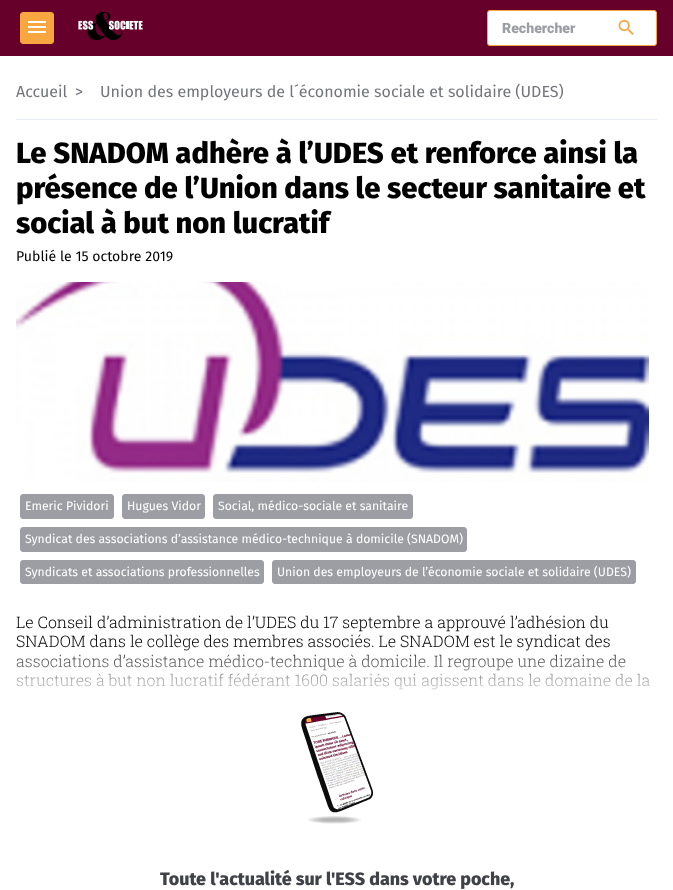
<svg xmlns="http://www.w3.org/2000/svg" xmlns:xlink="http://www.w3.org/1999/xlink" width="673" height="890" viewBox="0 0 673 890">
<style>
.cls-1{font:900 14.1px Roboto;fill:#9c9ea4}
.cls-2{font:16px Fira Sans;fill:#73757b}
.cls-3{font:800 29.2px Fira Sans;fill:#000000}
.cls-4{font:14.1px Fira Sans;fill:#000000}
.cls-5{font:12.25px Fira Sans;fill:#ffffff}
.cls-6{font:300 16px Roboto Slab;fill:#000000}
.cls-7{font:800 17.9px Fira Sans;fill:#404248}
</style>
<defs>
<linearGradient id="g1" gradientUnits="userSpaceOnUse" x1="337" y1="642" x2="337" y2="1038"><stop offset="0" stop-color="#ffffff" stop-opacity="0"/><stop offset="0.15" stop-color="#ffffff"/></linearGradient>
</defs>
<rect width="100%" height="100%" fill="#ffffff"/>
<rect fill="#66002b" x="0" y="0" width="673" height="56"/>
<rect fill="#f8a640" stroke="#f8a640" x="20.5" y="12.5" width="33" height="31" rx="2.5"/>
<image xlink:href="image0.png" x="28" y="21" width="18" height="12"/>
<image xlink:href="image1.png" x="78" y="12" width="65" height="28"/>
<rect fill="#ffffff" stroke="#f8a640" x="487.5" y="10.5" width="169" height="35" rx="2.5"/>
<image xlink:href="image2.png" x="618" y="19" width="16" height="16"/>
<rect fill="#ebeef5" x="16" y="119" width="641" height="1"/>
<image xlink:href="image3.png" x="16" y="282" width="633" height="200"/>
<rect fill="#9c9ea4" stroke="#9c9ea4" x="20.5" y="494.5" width="93" height="24" rx="2.5"/>
<rect fill="#9c9ea4" stroke="#9c9ea4" x="122.5" y="494.5" width="82" height="24" rx="2.5"/>
<rect fill="#9c9ea4" stroke="#9c9ea4" x="213.5" y="494.5" width="199" height="24" rx="2.5"/>
<rect fill="#9c9ea4" stroke="#9c9ea4" x="20.5" y="527.5" width="446" height="24" rx="2.5"/>
<rect fill="#9c9ea4" stroke="#9c9ea4" x="20.5" y="560.5" width="243" height="23" rx="2.5"/>
<rect fill="#9c9ea4" stroke="#9c9ea4" x="272.5" y="560.5" width="363" height="23" rx="2.5"/>
<image xlink:href="image4.png" x="301" y="712" width="72" height="112"/>
<text class="cls-1" x="502" y="33">Rechercher</text>
<text class="cls-2" x="16" y="97">Accueil</text>
<text class="cls-2" x="75" y="97">&gt;</text>
<text class="cls-2" x="100" y="97">Union des employeurs de l´économie sociale et solidaire (UDES)</text>
<text class="cls-3"><tspan x="16" y="163">Le SNADOM adhère à l’UDES et renforce ainsi la</tspan><tspan x="16" y="198">présence de l’Union dans le secteur sanitaire et</tspan><tspan x="16" y="233">social à but non lucratif</tspan></text>
<text class="cls-4" x="16" y="261">Publié le 15 octobre 2019</text>
<text class="cls-5" x="25" y="510">Emeric Pividori</text>
<text class="cls-5" x="127" y="510">Hugues Vidor</text>
<text class="cls-5" x="218" y="510">Social, médico-sociale et sanitaire</text>
<text class="cls-5" x="25" y="543">Syndicat des associations d’assistance médico-technique à domicile (SNADOM)</text>
<text class="cls-5" x="25" y="576">Syndicats et associations professionnelles</text>
<text class="cls-5" x="277" y="576">Union des employeurs de l’économie sociale et solidaire (UDES)</text>
<text class="cls-6"><tspan x="16" y="628">Le Conseil d’administration de l’UDES du 17 septembre a approuvé l’adhésion du</tspan><tspan x="16" y="647">SNADOM dans le collège des membres associés. Le SNADOM est le syndicat des</tspan><tspan x="16" y="667">associations d’assistance médico-technique à domicile. Il regroupe une dizaine de</tspan><tspan x="16" y="686">structures à but non lucratif fédérant 1600 salariés qui agissent dans le domaine de la</tspan></text>
<rect fill="url(#g1)" x="16" y="643" width="634" height="47"/>
<text class="cls-7" x="160" y="885">Toute l'actualité sur l'ESS dans votre poche,</text>
</svg>
